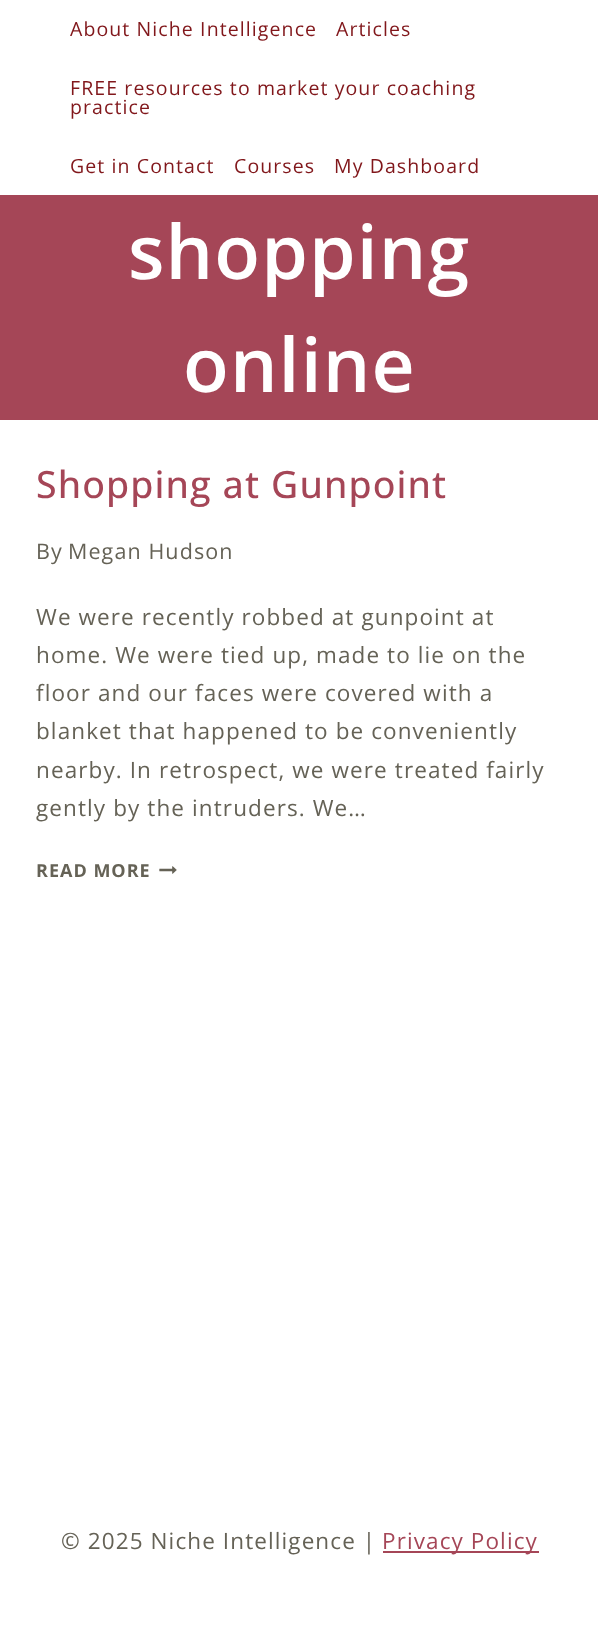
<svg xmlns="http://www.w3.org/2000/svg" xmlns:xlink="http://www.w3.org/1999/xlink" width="598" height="1631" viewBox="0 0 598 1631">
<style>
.cls-1{font:19.5px Open Sans;letter-spacing:1.1px;fill:#81171b}
.cls-2{font:600 75px Open Sans;letter-spacing:1.1px;fill:#ffffff}
.cls-3{font:500 37.5px Open Sans;letter-spacing:1.1px;fill:#a54657}
.cls-4{font:21.5px Open Sans;letter-spacing:1.1px;fill:#656256}
.cls-5{font:22.5px Open Sans;letter-spacing:1.1px;fill:#656256}
.cls-6{font:bold 18px Open Sans;letter-spacing:1px;fill:#656256}
.cls-7{font:22.5px Open Sans;letter-spacing:1.1px;fill:#a54657}
</style>
<rect width="100%" height="100%" fill="#ffffff"/>
<rect fill="#a54657" x="0" y="195" width="598" height="225"/>
<image xlink:href="image0.png" x="159" y="866" width="18" height="8"/>
<rect fill="#a54657" x="383" y="1551" width="156" height="2"/>
<text class="cls-1" x="70" y="36">About Niche Intelligence</text>
<text class="cls-1" x="336" y="36">Articles</text>
<text class="cls-1"><tspan x="70" y="95">FREE resources to market your coaching</tspan><tspan x="70" y="114">practice</tspan></text>
<text class="cls-1" x="70" y="173">Get in Contact</text>
<text class="cls-1" x="234" y="173">Courses</text>
<text class="cls-1" x="334" y="173">My Dashboard</text>
<text class="cls-2" x="128" y="279">shopping</text>
<text class="cls-2" x="183" y="392">online</text>
<text class="cls-3" x="36" y="498">Shopping at Gunpoint</text>
<text class="cls-4" x="36" y="559">By</text>
<text class="cls-4" x="68" y="559">Megan Hudson</text>
<text class="cls-5"><tspan x="36" y="625">We were recently robbed at gunpoint at</tspan><tspan x="36" y="663">home. We were tied up, made to lie on the</tspan><tspan x="36" y="701">floor and our faces were covered with a</tspan><tspan x="36" y="739">blanket that happened to be conveniently</tspan><tspan x="36" y="778">nearby. In retrospect, we were treated fairly</tspan><tspan x="36" y="816">gently by the intruders. We…</tspan></text>
<text class="cls-6" x="36" y="877">READ MORE</text>
<text class="cls-5" x="61" y="1549">© 2025 Niche Intelligence |</text>
<text class="cls-7" x="382" y="1549">Privacy Policy</text>
</svg>
